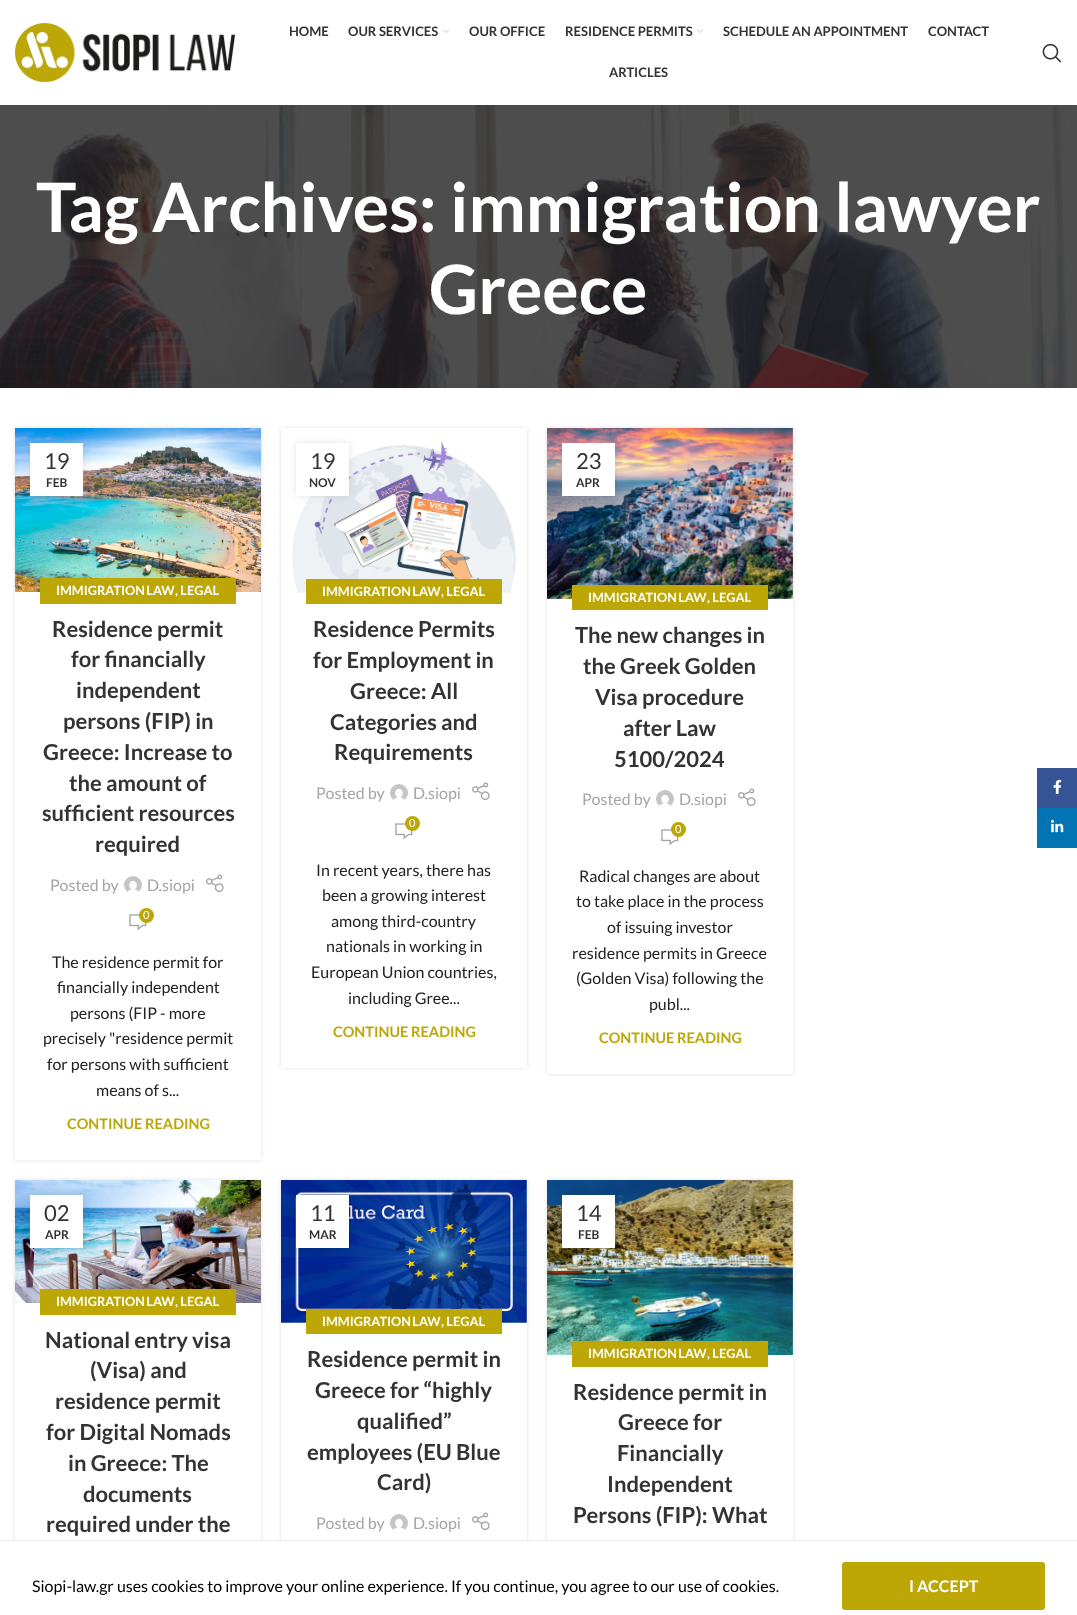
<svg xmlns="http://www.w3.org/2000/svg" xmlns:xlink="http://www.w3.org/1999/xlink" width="1077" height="1615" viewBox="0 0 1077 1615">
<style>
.cls-1{font:bold 13px Lato;fill:#333333}
.cls-2{font:bold 68px Lato;fill:#ffffff}
.cls-3{font:22px Lato;fill:#333333}
.cls-4{font:bold 12px Lato;fill:#333333}
.cls-5{font:bold 12.75px Lato;fill:#ffffff}
.cls-6{font:bold 22px Lato;fill:#333333}
.cls-7{font:16px Lato;fill:#a5a5a5}
.cls-8{font:11px Lato;fill:#ffffff}
.cls-9{font:16px Lato;fill:#222221}
.cls-10{font:bold 14.5px Lato;fill:#bca707}
.cls-11{font:16px Lato;fill:#000000}
.cls-12{font:bold 16px Lato;fill:#ffffff}
</style>
<defs>
<clipPath id="clip1"><path d="M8 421H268V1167H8ZM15 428H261V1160H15Z" clip-rule="evenodd"/></clipPath>
<clipPath id="clip2"><path d="M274 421H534V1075H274ZM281 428H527V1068H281Z" clip-rule="evenodd"/></clipPath>
<clipPath id="clip3"><path d="M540 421H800V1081H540ZM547 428H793V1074H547Z" clip-rule="evenodd"/></clipPath>
<clipPath id="clip4"><path d="M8 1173H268V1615H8ZM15 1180H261V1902H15Z" clip-rule="evenodd"/></clipPath>
<clipPath id="clip5"><path d="M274 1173H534V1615H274ZM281 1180H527V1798H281Z" clip-rule="evenodd"/></clipPath>
<clipPath id="clip6"><path d="M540 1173H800V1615H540ZM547 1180H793V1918H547Z" clip-rule="evenodd"/></clipPath>
</defs>
<rect width="100%" height="100%" fill="#ffffff"/>
<image xlink:href="image0.png" x="15" y="23" width="220" height="59"/>
<image xlink:href="image1.png" x="443" y="29" width="6" height="4"/>
<image xlink:href="image1.png" x="697" y="29" width="6" height="4"/>
<image xlink:href="image2.png" x="1042" y="43" width="20" height="20"/>
<image xlink:href="image3.png" x="0" y="105" width="1077" height="283"/>
<g clip-path="url(#clip1)">
<rect fill="#000000" fill-opacity="0.12" filter="blur(2px)" x="15" y="428" width="246" height="732"/>
</g>
<image xlink:href="image4.png" x="15" y="428" width="246" height="164"/>
<rect fill="#000000" fill-opacity="0.1" filter="blur(4.5px)" x="30" y="443" width="53" height="53"/>
<rect fill="#ffffff" x="30" y="443" width="53" height="53"/>
<rect fill="#bca707" x="40" y="578" width="196" height="26"/>
<image xlink:href="image5.png" x="124" y="876" width="18" height="16"/>
<image xlink:href="image6.png" x="206" y="874" width="18" height="19"/>
<image xlink:href="image7.png" x="129" y="914" width="18" height="17"/>
<circle fill="#bca707" cx="146.5" cy="915.5" r="7.5"/>
<g clip-path="url(#clip2)">
<rect fill="#000000" fill-opacity="0.12" filter="blur(2px)" x="281" y="428" width="246" height="640"/>
</g>
<image xlink:href="image8.png" x="292" y="441" width="224" height="152"/>
<rect fill="#000000" fill-opacity="0.1" filter="blur(4.5px)" x="296" y="443" width="53" height="53"/>
<rect fill="#ffffff" x="296" y="443" width="53" height="53"/>
<rect fill="#bca707" x="306" y="579" width="196" height="25"/>
<image xlink:href="image5.png" x="390" y="784" width="18" height="16"/>
<image xlink:href="image6.png" x="472" y="782" width="18" height="19"/>
<image xlink:href="image7.png" x="395" y="823" width="18" height="17"/>
<circle fill="#bca707" cx="412.5" cy="823.5" r="7.5"/>
<g clip-path="url(#clip3)">
<rect fill="#000000" fill-opacity="0.12" filter="blur(2px)" x="547" y="428" width="246" height="646"/>
</g>
<image xlink:href="image9.png" x="547" y="428" width="246" height="171"/>
<rect fill="#000000" fill-opacity="0.1" filter="blur(4.5px)" x="562" y="443" width="53" height="53"/>
<rect fill="#ffffff" x="562" y="443" width="53" height="53"/>
<rect fill="#bca707" x="572" y="585" width="196" height="25"/>
<image xlink:href="image5.png" x="656" y="790" width="18" height="16"/>
<image xlink:href="image6.png" x="738" y="788" width="18" height="19"/>
<image xlink:href="image7.png" x="661" y="829" width="18" height="17"/>
<circle fill="#bca707" cx="678.5" cy="829.5" r="7.5"/>
<g clip-path="url(#clip4)">
<rect fill="#000000" fill-opacity="0.12" filter="blur(2px)" x="15" y="1180" width="246" height="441"/>
</g>
<image xlink:href="image10.png" x="15" y="1180" width="246" height="123"/>
<rect fill="#000000" fill-opacity="0.1" filter="blur(4.5px)" x="30" y="1195" width="53" height="53"/>
<rect fill="#ffffff" x="30" y="1195" width="53" height="53"/>
<rect fill="#bca707" x="40" y="1289" width="196" height="26"/>
<g clip-path="url(#clip5)">
<rect fill="#000000" fill-opacity="0.12" filter="blur(2px)" x="281" y="1180" width="246" height="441"/>
</g>
<image xlink:href="image11.png" x="281" y="1180" width="246" height="143"/>
<rect fill="#000000" fill-opacity="0.1" filter="blur(4.5px)" x="296" y="1195" width="53" height="53"/>
<rect fill="#ffffff" x="296" y="1195" width="53" height="53"/>
<rect fill="#bca707" x="306" y="1309" width="196" height="25"/>
<image xlink:href="image12.png" x="390" y="1514" width="18" height="16"/>
<image xlink:href="image6.png" x="472" y="1512" width="18" height="19"/>
<g clip-path="url(#clip6)">
<rect fill="#000000" fill-opacity="0.12" filter="blur(2px)" x="547" y="1180" width="246" height="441"/>
</g>
<image xlink:href="image13.png" x="547" y="1180" width="246" height="175"/>
<rect fill="#000000" fill-opacity="0.1" filter="blur(4.5px)" x="562" y="1195" width="53" height="53"/>
<rect fill="#ffffff" x="562" y="1195" width="53" height="53"/>
<rect fill="#bca707" x="572" y="1341" width="196" height="26"/>
<rect fill="#365493" x="1037" y="768" width="40" height="40"/>
<image xlink:href="image14.png" x="1053" y="779" width="9" height="15"/>
<rect fill="#0274b3" x="1037" y="808" width="40" height="40"/>
<image xlink:href="image15.png" x="1051" y="819" width="13" height="14"/>
<rect fill="#ffffff" x="12" y="1541" width="784" height="74"/>
<rect fill="#eeeeee" x="0" y="1540" width="1077" height="1"/>
<rect fill="#bca707" x="842" y="1562" width="203" height="48" rx="3"/>
<text class="cls-1" x="289" y="36">HOME</text>
<text class="cls-1" x="348" y="36">OUR SERVICES</text>
<text class="cls-1" x="469" y="36">OUR OFFICE</text>
<text class="cls-1" x="565" y="36">RESIDENCE PERMITS</text>
<text class="cls-1" x="723" y="36">SCHEDULE AN APPOINTMENT</text>
<text class="cls-1" x="928" y="36">CONTACT</text>
<text class="cls-1" x="609" y="77">ARTICLES</text>
<text class="cls-2" x="36" y="232">Tag Archives: immigration lawyer</text>
<text class="cls-2" x="429" y="314">Greece</text>
<text class="cls-3" x="44" y="469">19</text>
<text class="cls-4" x="46" y="487">FEB</text>
<text class="cls-5" x="56" y="595" word-spacing="-1">IMMIGRATION LAW</text>
<text class="cls-5" x="175" y="595">, LEGAL</text>
<text class="cls-6" x="52" y="637">Residence permit</text>
<text class="cls-6" x="71" y="667">for financially</text>
<text class="cls-6" x="76" y="698">independent</text>
<text class="cls-6" x="63" y="729">persons (FIP) in</text>
<text class="cls-6" x="43" y="760">Greece: Increase to</text>
<text class="cls-6" x="69" y="791">the amount of</text>
<text class="cls-6" x="42" y="821">sufficient resources</text>
<text class="cls-6" x="95" y="852">required</text>
<text class="cls-7" x="50" y="891">Posted by</text>
<text class="cls-7" x="147" y="891">D.siopi</text>
<text class="cls-8" x="143" y="919">0</text>
<text class="cls-9" x="52" y="968">The residence permit for</text>
<text class="cls-9" x="57" y="993">financially independent</text>
<text class="cls-9" x="70" y="1019">persons (FIP - more</text>
<text class="cls-9" x="43" y="1044">precisely "residence permit</text>
<text class="cls-9" x="47" y="1070">for persons with sufficient</text>
<text class="cls-9" x="96" y="1096">means of s...</text>
<text class="cls-10" x="67" y="1129">CONTINUE READING</text>
<text class="cls-3" x="310" y="469">19</text>
<text class="cls-4" x="309" y="487">NOV</text>
<text class="cls-5" x="322" y="596" word-spacing="-1">IMMIGRATION LAW</text>
<text class="cls-5" x="441" y="596">, LEGAL</text>
<text class="cls-6"><tspan x="313" y="637">Residence Permits</tspan><tspan x="313" y="668">for Employment in</tspan></text>
<text class="cls-6" x="350" y="699">Greece: All</text>
<text class="cls-6" x="330" y="730">Categories and</text>
<text class="cls-6" x="334" y="760">Requirements</text>
<text class="cls-7" x="316" y="799">Posted by</text>
<text class="cls-7" x="413" y="799">D.siopi</text>
<text class="cls-8" x="409" y="827">0</text>
<text class="cls-9" x="316" y="876">In recent years, there has</text>
<text class="cls-9" x="322" y="901">been a growing interest</text>
<text class="cls-9" x="331" y="927">among third-country</text>
<text class="cls-9" x="326" y="952">nationals in working in</text>
<text class="cls-9" x="311" y="978">European Union countries,</text>
<text class="cls-9" x="348" y="1004">including Gree...</text>
<text class="cls-10" x="333" y="1037">CONTINUE READING</text>
<text class="cls-3" x="576" y="469">23</text>
<text class="cls-4" x="576" y="487">APR</text>
<text class="cls-5" x="588" y="602" word-spacing="-1">IMMIGRATION LAW</text>
<text class="cls-5" x="707" y="602">, LEGAL</text>
<text class="cls-6" x="575" y="643">The new changes in</text>
<text class="cls-6" x="583" y="674">the Greek Golden</text>
<text class="cls-6" x="595" y="705">Visa procedure</text>
<text class="cls-6" x="623" y="736">after Law</text>
<text class="cls-6" x="614" y="767">5100/2024</text>
<text class="cls-7" x="582" y="805">Posted by</text>
<text class="cls-7" x="679" y="805">D.siopi</text>
<text class="cls-8" x="675" y="833">0</text>
<text class="cls-9" x="579" y="882">Radical changes are about</text>
<text class="cls-9" x="576" y="907">to take place in the process</text>
<text class="cls-9" x="607" y="933">of issuing investor</text>
<text class="cls-9" x="572" y="959">residence permits in Greece</text>
<text class="cls-9" x="576" y="984">(Golden Visa) following the</text>
<text class="cls-9" x="649" y="1010">publ...</text>
<text class="cls-10" x="599" y="1043">CONTINUE READING</text>
<text class="cls-3" x="44" y="1221">02</text>
<text class="cls-4" x="45" y="1239">APR</text>
<text class="cls-5" x="56" y="1306" word-spacing="-1">IMMIGRATION LAW</text>
<text class="cls-5" x="175" y="1306">, LEGAL</text>
<text class="cls-6" x="45" y="1348">National entry visa</text>
<text class="cls-6" x="90" y="1378">(Visa) and</text>
<text class="cls-6" x="55" y="1409">residence permit</text>
<text class="cls-6" x="46" y="1440">for Digital Nomads</text>
<text class="cls-6" x="68" y="1471">in Greece: The</text>
<text class="cls-6" x="83" y="1502">documents</text>
<text class="cls-6" x="46" y="1532">required under the</text>
<text class="cls-3" x="310" y="1221">11</text>
<text class="cls-4" x="309" y="1239">MAR</text>
<text class="cls-5" x="322" y="1326" word-spacing="-1">IMMIGRATION LAW</text>
<text class="cls-5" x="441" y="1326">, LEGAL</text>
<text class="cls-6" x="307" y="1367">Residence permit in</text>
<text class="cls-6" x="315" y="1398">Greece for “highly</text>
<text class="cls-6" x="357" y="1429">qualified”</text>
<text class="cls-6" x="307" y="1460">employees (EU Blue</text>
<text class="cls-6" x="377" y="1490">Card)</text>
<text class="cls-7" x="316" y="1529">Posted by</text>
<text class="cls-7" x="413" y="1529">D.siopi</text>
<text class="cls-3" x="576" y="1221">14</text>
<text class="cls-4" x="578" y="1239">FEB</text>
<text class="cls-5" x="588" y="1358" word-spacing="-1">IMMIGRATION LAW</text>
<text class="cls-5" x="707" y="1358">, LEGAL</text>
<text class="cls-6" x="573" y="1400">Residence permit in</text>
<text class="cls-6" x="618" y="1430">Greece for</text>
<text class="cls-6" x="617" y="1461">Financially</text>
<text class="cls-6" x="607" y="1492">Independent</text>
<text class="cls-6" x="573" y="1523">Persons (FIP): What</text>
<text class="cls-11" x="32" y="1592">Siopi-law.gr uses cookies to improve your online experience. If you continue, you agree to our use of cookies.</text>
<text class="cls-12" x="909" y="1592">I ACCEPT</text>
</svg>
